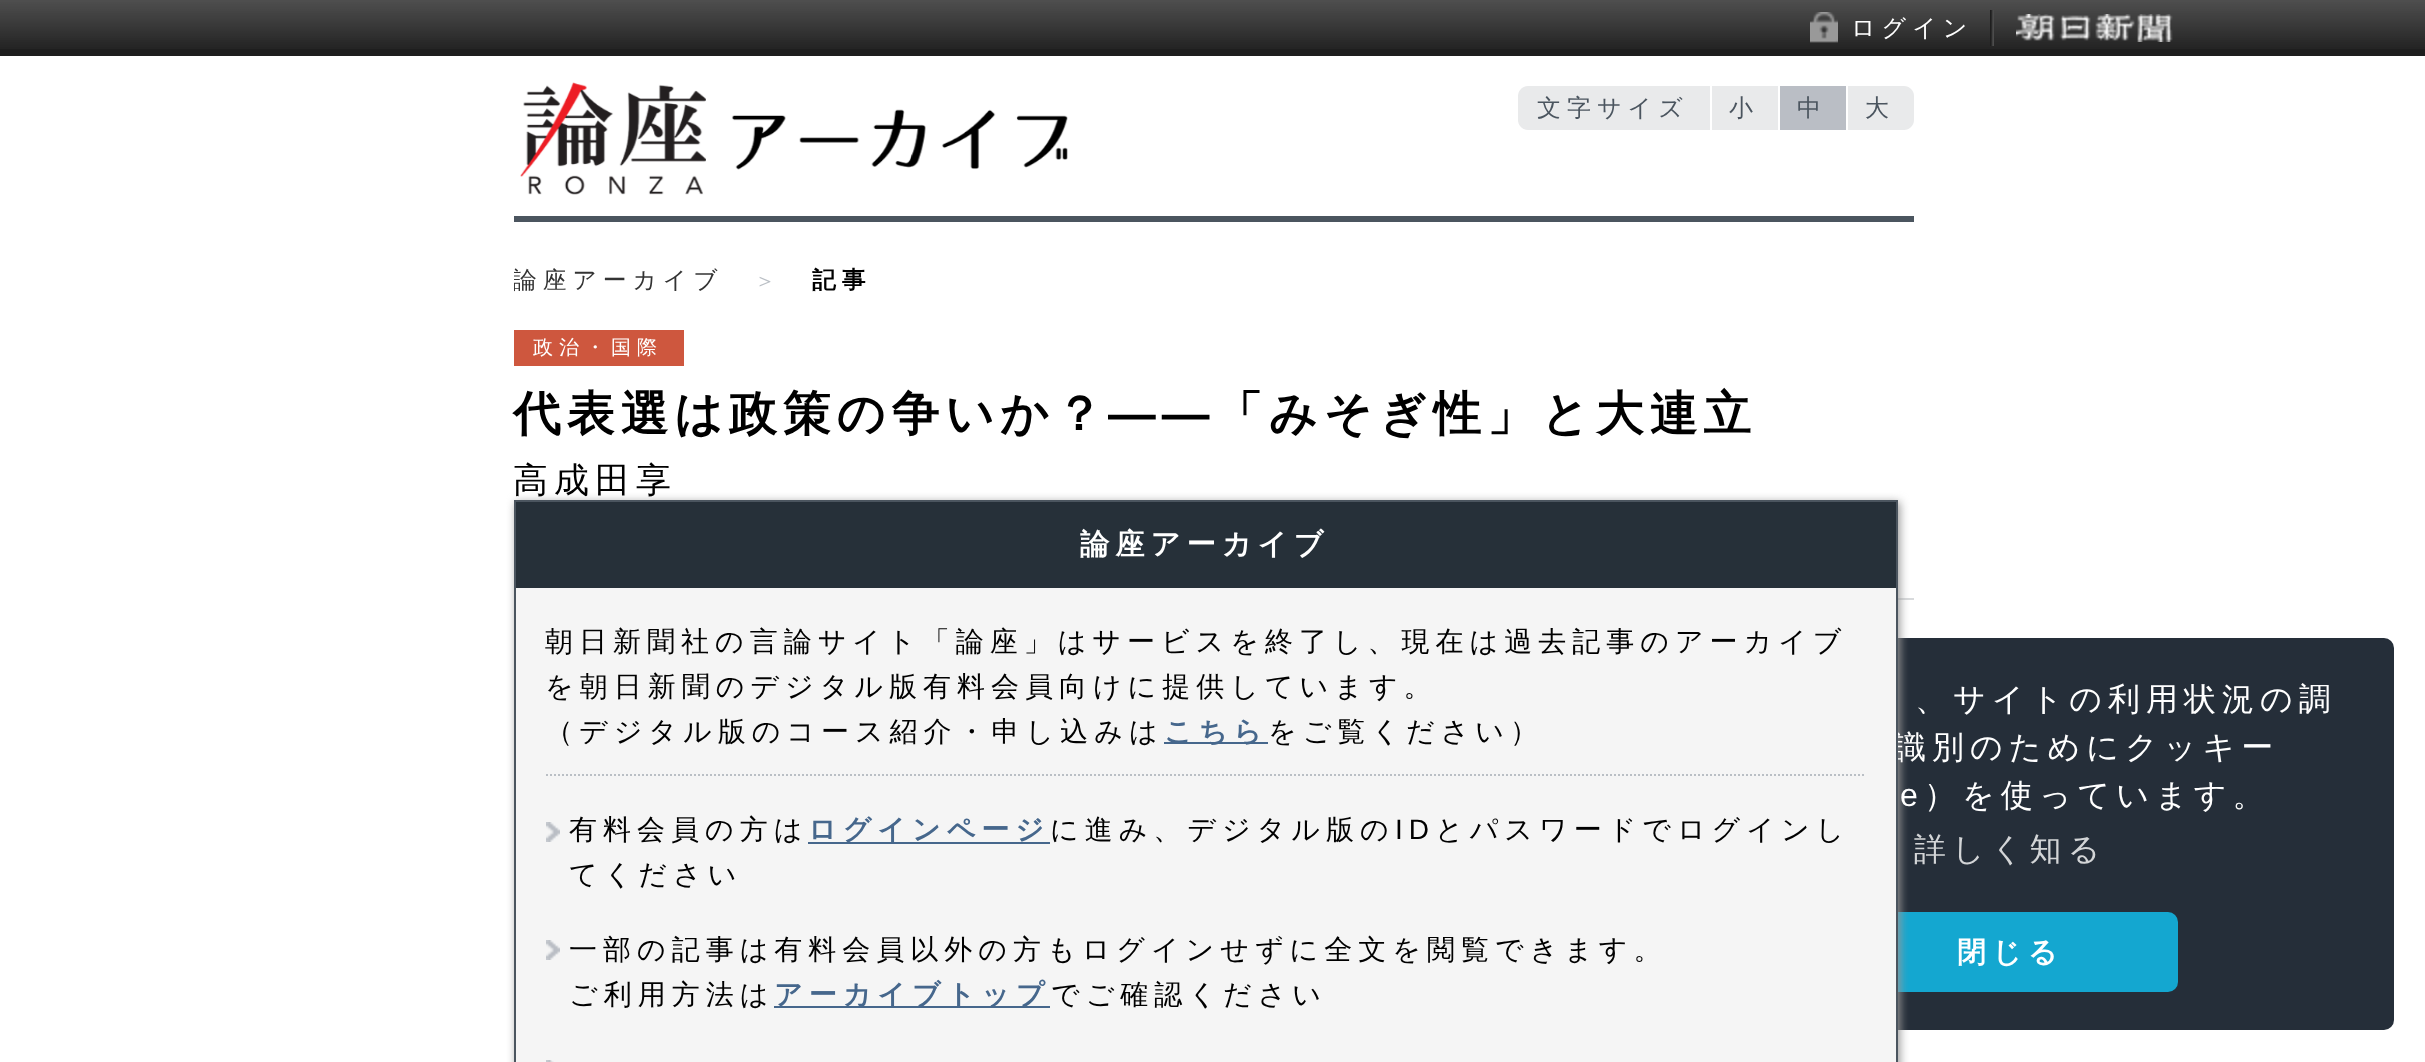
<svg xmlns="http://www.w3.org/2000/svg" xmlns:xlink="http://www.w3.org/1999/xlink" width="2425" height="1062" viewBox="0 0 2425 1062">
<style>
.cls-1{font:500 24px WenQuanYi Zen Hei;letter-spacing:6px;fill:#ffffff}
.cls-2{font:500 24px WenQuanYi Zen Hei;letter-spacing:6px;fill:#4b555f}
.cls-3{font:500 23.75px WenQuanYi Zen Hei;letter-spacing:6px;fill:#333333}
.cls-4{font:500 22px WenQuanYi Zen Hei;letter-spacing:6px;fill:#babfc5}
.cls-5{font:bold 23.75px WenQuanYi Zen Hei;letter-spacing:6px;fill:#000000}
.cls-6{font:500 20px WenQuanYi Zen Hei;letter-spacing:6px;fill:#ffffff}
.cls-7{font:bold 47.75px WenQuanYi Zen Hei;letter-spacing:6px;fill:#000000}
.cls-8{font:bold 47.75px Liberation Sans;letter-spacing:6px;fill:#000000}
.cls-9{font:500 35px WenQuanYi Zen Hei;letter-spacing:6px;fill:#000000}
.cls-10{font:500 32px WenQuanYi Zen Hei;letter-spacing:6px;fill:#ffffff}
.cls-11{font:500 28px WenQuanYi Zen Hei;letter-spacing:6px;fill:#000000}
.cls-12{font:bold 28px WenQuanYi Zen Hei;letter-spacing:6px;fill:#46678c}
.cls-13{font:28px Liberation Sans;letter-spacing:6px;fill:#000000}
.cls-14{font:bold 29.25px WenQuanYi Zen Hei;letter-spacing:6px;fill:#ffffff}
.cls-15{font:32px Liberation Sans;letter-spacing:6px;fill:#ffffff}
.cls-16{font:500 32px WenQuanYi Zen Hei;letter-spacing:6px;fill:#d3d5d7}
.cls-17{font:bold 29px WenQuanYi Zen Hei;letter-spacing:6px;fill:#ffffff}
</style>
<defs>
<clipPath id="clip1"><rect x="514" y="242" width="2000" height="58"/></clipPath>
</defs>
<rect width="100%" height="100%" fill="#ffffff"/>
<rect fill="#1e1e1e" x="0" y="49" width="2425" height="7"/>
<image xlink:href="image0.png" x="0" y="0" width="2425" height="49"/>
<image xlink:href="image1.png" x="1990" y="10" width="4" height="36"/>
<image xlink:href="image2.png" x="1810" y="12" width="28" height="31"/>
<image xlink:href="image3.png" x="2016" y="14" width="157" height="28"/>
<rect fill="#4b555f" x="514" y="216" width="1400" height="6"/>
<image xlink:href="image4.png" x="520" y="82" width="548" height="113"/>
<path fill="#e9eaeb" d="M1528 86H1710V130H1528C1522.5 130 1518 125.5 1518 120V96C1518 90.5 1522.5 86 1528 86Z"/>
<rect fill="#e9eaeb" x="1712" y="86" width="66" height="44"/>
<rect fill="#babec5" x="1780" y="86" width="66" height="44"/>
<path fill="#e9eaeb" d="M1846 86H1904C1909.5 86 1914 90.5 1914 96V120C1914 125.5 1909.5 130 1904 130H1846Z"/>
<rect fill="#ffffff" x="1846" y="86" width="2" height="44"/>
<rect fill="#d8dadc" x="1898" y="598" width="16" height="2"/>
<rect fill="#ce573e" x="514" y="330" width="170" height="36"/>
<rect fill="#252e39" x="1626" y="638" width="768" height="392" rx="10"/>
<rect fill="#14a7d0" x="1842" y="912" width="336" height="80" rx="10"/>
<rect fill="#999999" filter="blur(5px)" x="516" y="502" width="1384" height="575"/>
<text class="cls-1" x="1851" y="36">ログイン</text>
<text class="cls-2" x="1537" y="116">文字サイズ</text>
<text class="cls-2" x="1729" y="116">小</text>
<text class="cls-2" x="1797" y="116">中</text>
<text class="cls-2" x="1865" y="116">大</text>
<g clip-path="url(#clip1)">
<text class="cls-3" x="513" y="288">論座アーカイブ</text>
</g>
<text class="cls-4" x="754" y="288">＞</text>
<text class="cls-5" x="812" y="288">記事</text>
<text class="cls-6" x="533" y="354">政治・国際</text>
<text class="cls-7" x="513" y="430">代表選は政策の争いか？</text>
<text class="cls-8" x="1108" y="430">――</text>
<text class="cls-7" x="1215" y="430">「みそぎ性」と大連立</text>
<text class="cls-9" x="513" y="492">高成田享</text>
<text class="cls-10" x="1915" y="710">、サイトの利用状況の調</text>
<text class="cls-10" x="1894" y="758">識別のためにクッキー</text>
<rect fill="#f5f5f5" x="516" y="588" width="1380" height="474"/>
<rect fill="none" stroke="#4b555f" stroke-width="2" x="515" y="501" width="1382" height="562"/>
<path fill="none" stroke="#babfc5" stroke-width="2" stroke-dasharray="2 2" d="M546 775H1866"/>
<text class="cls-11" x="1051" y="1004">でご確認ください</text>
<rect fill="#46678c" x="774" y="1006" width="276" height="2"/>
<text class="cls-12" x="774" y="1004">アーカイブトップ</text>
<text class="cls-11" x="569" y="1004">ご利用方法は</text>
<text class="cls-11" x="569" y="959">一部の記事は有料会員以外の方もログインせずに全文を閲覧できます。</text>
<text class="cls-11" x="569" y="884">てください</text>
<text class="cls-11" x="1435" y="839">とパスワードでログインし</text>
<text class="cls-13" x="1395" y="839">ID</text>
<text class="cls-11" x="1050" y="839">に進み、デジタル版の</text>
<rect fill="#46678c" x="808" y="842" width="242" height="2"/>
<text class="cls-12" x="808" y="839">ログインページ</text>
<text class="cls-11" x="569" y="839">有料会員の方は</text>
<text class="cls-11" x="1268" y="741">をご覧ください）</text>
<rect fill="#46678c" x="1164" y="742" width="104" height="2"/>
<text class="cls-12" x="1164" y="741">こちら</text>
<text class="cls-11" x="545" y="741">（デジタル版のコース紹介・申し込みは</text>
<text class="cls-11" x="545" y="696">を朝日新聞のデジタル版有料会員向けに提供しています。</text>
<text class="cls-11" x="545" y="651">朝日新聞社の言論サイト「論座」はサービスを終了し、現在は過去記事のアーカイブ</text>
<rect fill="#263039" x="516" y="502" width="1380" height="86"/>
<text class="cls-14" x="1080" y="554">論座アーカイブ</text>
<image xlink:href="image6.png" x="546" y="1060" width="8" height="2"/>
<image xlink:href="image5.png" x="546" y="940" width="14" height="20"/>
<image xlink:href="image5.png" x="546" y="822" width="14" height="20"/>
<text class="cls-15" x="1900" y="806">e</text>
<text class="cls-10" x="1924" y="806">）を使っています。</text>
<text class="cls-16" x="1914" y="860">詳しく知る</text>
<text class="cls-17" x="1957" y="962">閉じる</text>
</svg>
